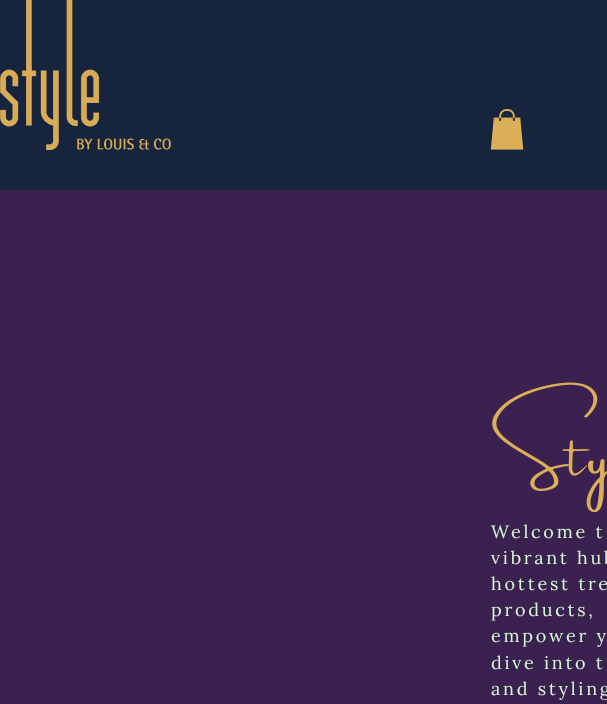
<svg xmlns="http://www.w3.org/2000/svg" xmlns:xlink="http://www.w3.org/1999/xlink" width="607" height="704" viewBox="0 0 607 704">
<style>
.cls-1{font:18px Lora;letter-spacing:2.75px;fill:#d6f8d6}
</style>
<rect width="100%" height="100%" fill="#16253d"/>
<image xlink:href="image0.png" x="0" y="0" width="171" height="150"/>
<image xlink:href="image1.png" x="490" y="109" width="34" height="41"/>
<rect fill="#3b214f" x="0" y="190" width="607" height="514"/>
<image xlink:href="image2.png" x="492" y="382" width="115" height="131"/>
<text class="cls-1"><tspan x="491" y="538">Welcome t</tspan><tspan x="491" y="564">vibrant hub</tspan><tspan x="491" y="590">hottest tre</tspan><tspan x="491" y="616">products,</tspan><tspan x="491" y="642">empower y</tspan><tspan x="491" y="669">dive into t</tspan><tspan x="491" y="695">and styling</tspan></text>
</svg>
